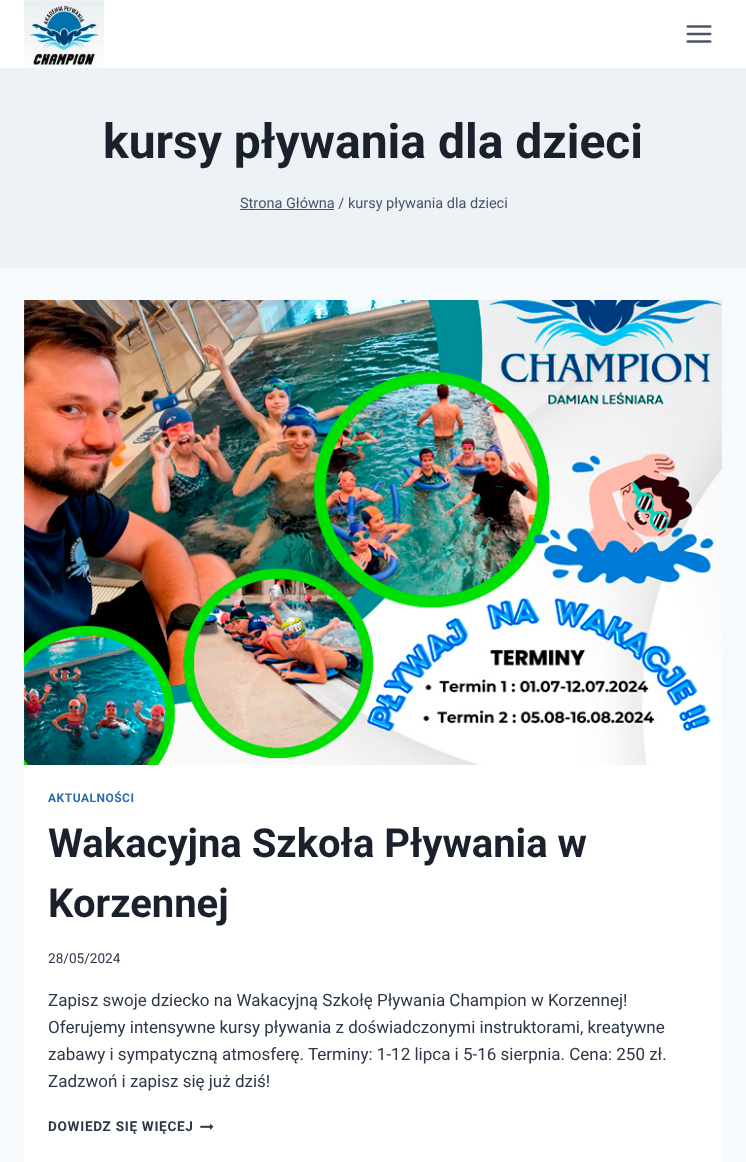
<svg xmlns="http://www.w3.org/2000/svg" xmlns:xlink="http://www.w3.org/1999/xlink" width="746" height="1162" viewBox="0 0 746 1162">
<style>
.cls-1{font:bold 48px Roboto;fill:#1a202c}
.cls-2{font:14.5px Roboto;fill:#4a5568}
.cls-3{font:bold 12px Roboto;letter-spacing:0.5px;fill:#2b6cb0}
.cls-4{font:bold 40px Roboto;fill:#1a202c}
.cls-5{font:13.6px Roboto;fill:#2d3748}
.cls-6{font:17px Roboto;fill:#2d3748}
.cls-7{font:bold 13.6px Roboto;letter-spacing:0.7px;fill:#2d3748}
</style>
<rect width="100%" height="100%" fill="#f7fafc"/>
<rect fill="#ffffff" x="0" y="0" width="746" height="68"/>
<image xlink:href="image0.png" x="24" y="0" width="80" height="68"/>
<image xlink:href="image1.png" x="686" y="25" width="26" height="18"/>
<rect fill="#edf2f7" x="0" y="68" width="746" height="200"/>
<rect fill="#4a5568" x="240" y="209" width="94" height="1"/>
<rect fill="#ffffff" x="24" y="300" width="698" height="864" rx="4"/>
<image xlink:href="image2.png" x="24" y="300" width="698" height="465"/>
<image xlink:href="image3.png" x="200" y="1123" width="14" height="7"/>
<text class="cls-1" x="103" y="158">kursy pływania dla dzieci</text>
<text class="cls-2" x="240" y="208">Strona Główna / kursy pływania dla dzieci</text>
<text class="cls-3" x="48" y="802">AKTUALNOŚCI</text>
<text class="cls-4"><tspan x="48" y="857">Wakacyjna Szkoła Pływania w</tspan><tspan x="48" y="917">Korzennej</tspan></text>
<text class="cls-5" x="48" y="963">28/05/2024</text>
<text class="cls-6"><tspan x="48" y="1006">Zapisz swoje dziecko na Wakacyjną Szkołę Pływania Champion w Korzennej!</tspan><tspan x="48" y="1033">Oferujemy intensywne kursy pływania z doświadczonymi instruktorami, kreatywne</tspan><tspan x="48" y="1060">zabawy i sympatyczną atmosferę. Terminy: 1-12 lipca i 5-16 sierpnia. Cena: 250 zł.</tspan><tspan x="48" y="1087">Zadzwoń i zapisz się już dziś!</tspan></text>
<text class="cls-7" x="48" y="1131">DOWIEDZ SIĘ WIĘCEJ</text>
</svg>
